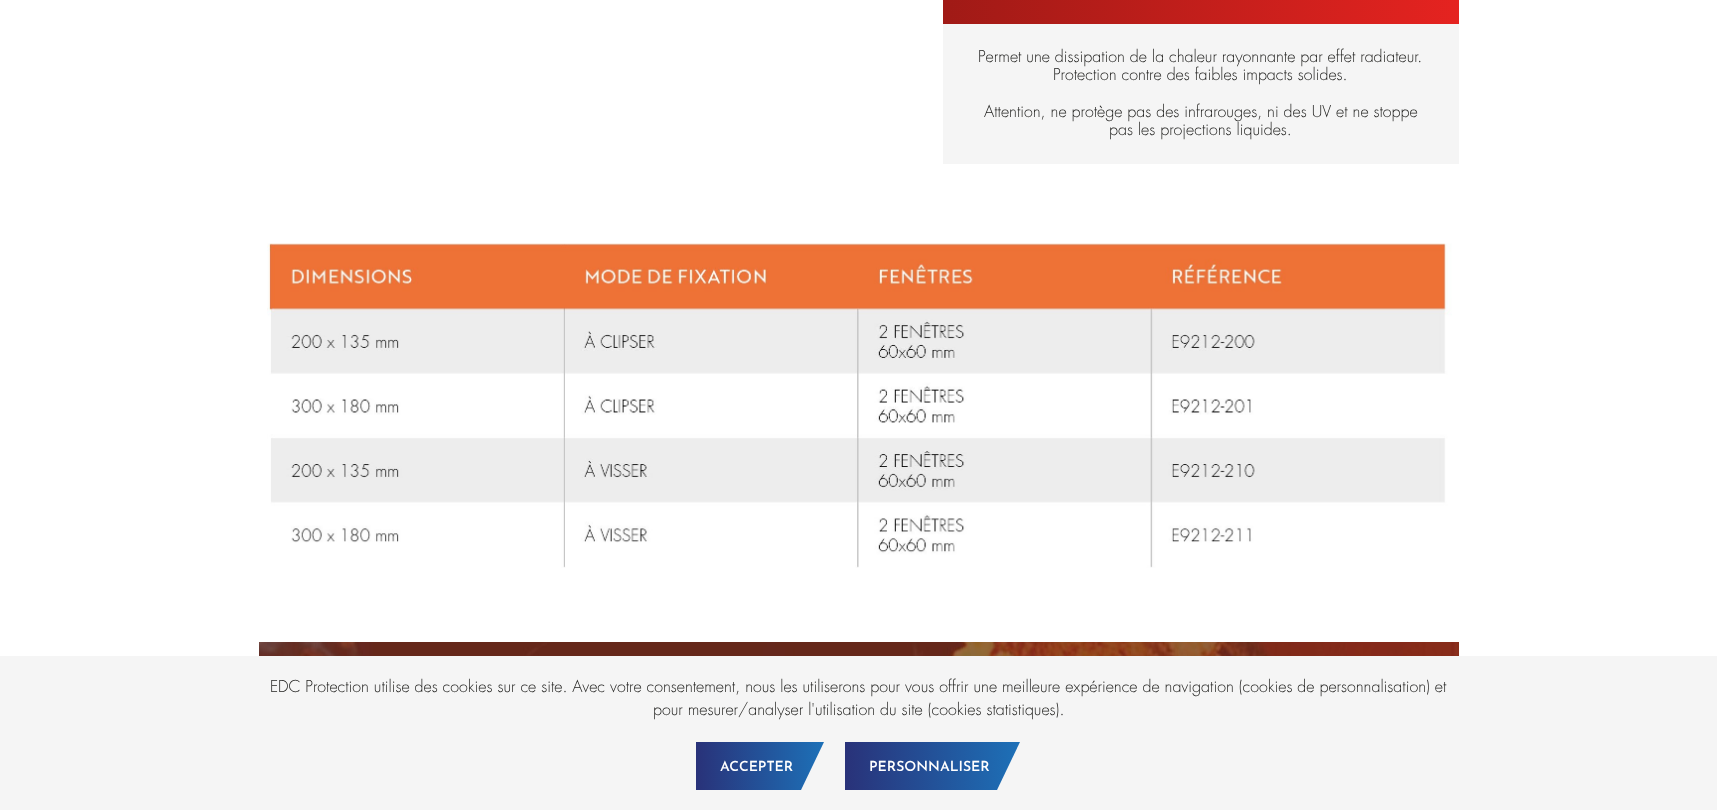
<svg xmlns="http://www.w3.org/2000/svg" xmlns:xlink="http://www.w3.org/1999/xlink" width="1717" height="810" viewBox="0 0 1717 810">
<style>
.cls-1{font:300 16px Futura;fill:#1d1d1b}
.cls-2{font:600 14px Josefin Sans;fill:#ffffff}
</style>
<defs>
<linearGradient id="g1" gradientUnits="userSpaceOnUse" x1="943" y1="-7" x2="1459" y2="-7"><stop offset="0" stop-color="#a01a16"/><stop offset="1" stop-color="#e52320"/></linearGradient>
<linearGradient id="g2" gradientUnits="userSpaceOnUse" x1="696" y1="766" x2="825" y2="766"><stop offset="0" stop-color="#293279"/><stop offset="1" stop-color="#1d71b8"/></linearGradient>
<linearGradient id="g3" gradientUnits="userSpaceOnUse" x1="845" y1="766" x2="1021" y2="766"><stop offset="0" stop-color="#293279"/><stop offset="1" stop-color="#1d71b8"/></linearGradient>
</defs>
<rect width="100%" height="100%" fill="#ffffff"/>
<rect fill="url(#g1)" x="943" y="0" width="516" height="24"/>
<rect fill="#f5f5f5" x="943" y="24" width="516" height="140"/>
<image xlink:href="image0.png" x="267" y="243" width="1185" height="325"/>
<image xlink:href="image1.png" x="259" y="642" width="1200" height="14"/>
<rect fill="#f5f5f5" x="0" y="656" width="1717" height="154"/>
<path fill="url(#g2)" d="M696 742V790H801L824 742Z"/>
<path fill="url(#g3)" d="M845 742V790H997L1020 742Z"/>
<text class="cls-1" x="978" y="62">Permet une dissipation de la chaleur rayonnante par effet radiateur.</text>
<text class="cls-1" x="1053" y="80">Protection contre des faibles impacts solides.</text>
<text class="cls-1" x="984" y="117">Attention, ne protège pas des infrarouges, ni des UV et ne stoppe</text>
<text class="cls-1" x="1109" y="135">pas les projections liquides.</text>
<text class="cls-1" x="270" y="692">EDC Protection utilise des cookies sur ce site. Avec votre consentement, nous les utiliserons pour vous offrir une meilleure expérience de navigation (cookies de personnalisation) et</text>
<text class="cls-1" x="653" y="715">pour mesurer/analyser l'utilisation du site (cookies statistiques).</text>
<text class="cls-2" x="720" y="771">ACCEPTER</text>
<text class="cls-2" x="869" y="771">PERSONNALISER</text>
</svg>
